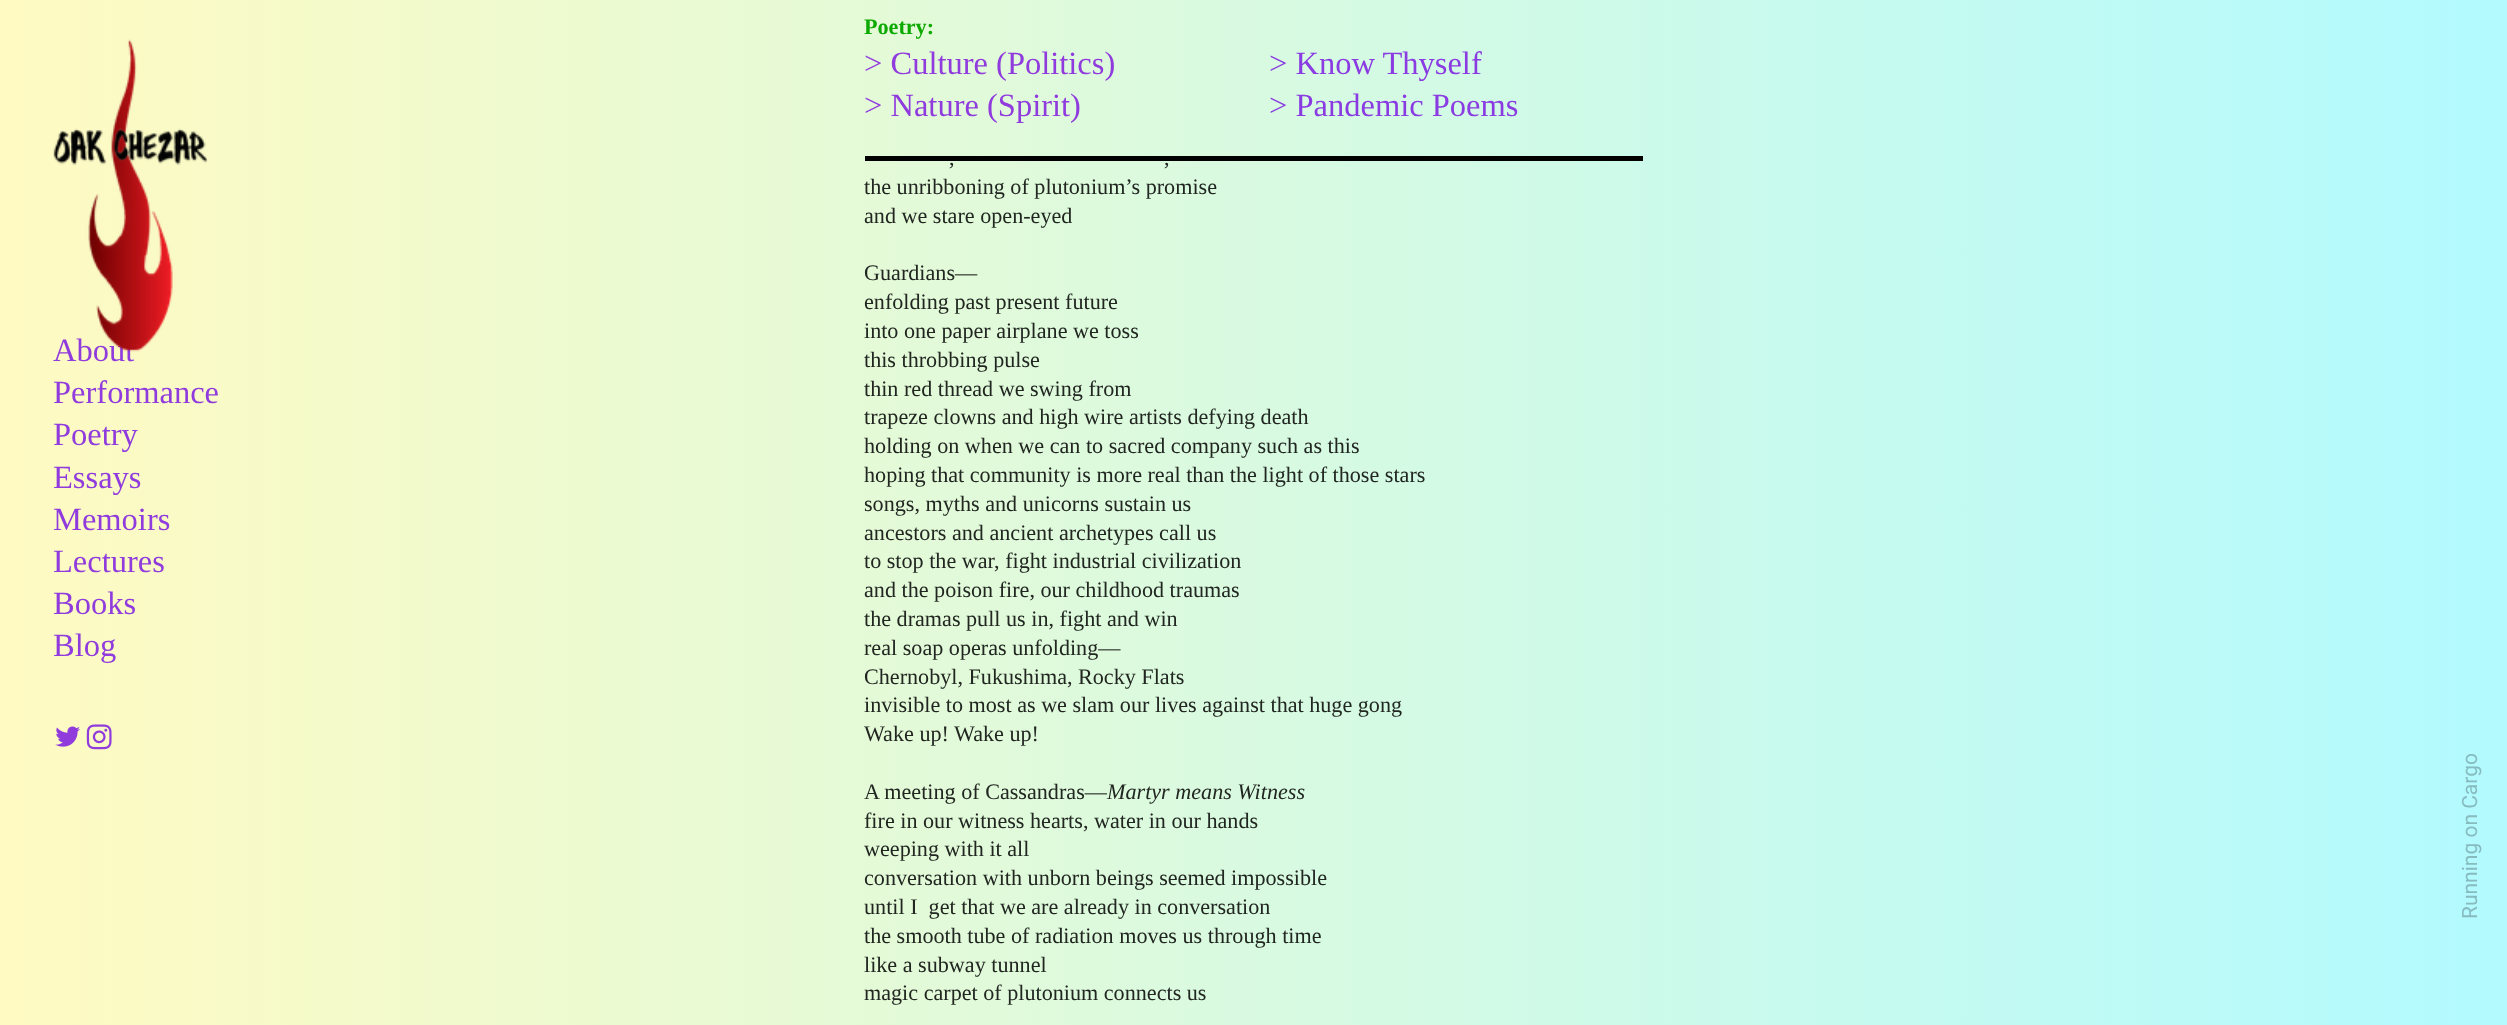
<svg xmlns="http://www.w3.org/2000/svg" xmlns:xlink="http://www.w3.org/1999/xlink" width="2507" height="1025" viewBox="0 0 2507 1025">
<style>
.cls-1{font:bold 22.15px Liberation Serif;fill:#0ca900}
.cls-2{font:32.5px Liberation Serif;fill:#903bdd}
.cls-3{font:32.5px Liberation Serif;fill:#8a3be1}
.cls-4{font:22.15px Liberation Serif;fill:#212621}
.cls-5{font:italic 22.15px Liberation Serif;fill:#212621}
.cls-6{font:21px Roboto;fill:#86bcbf}
</style>
<defs>
<linearGradient id="g1" gradientUnits="userSpaceOnUse" x1="0" y1="78" x2="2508" y2="78"><stop offset="0" stop-color="#fffac2"/><stop offset="1" stop-color="#b2faff"/></linearGradient>
<linearGradient id="g2" gradientUnits="userSpaceOnUse" x1="0" y1="607" x2="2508" y2="607"><stop offset="0" stop-color="#fffac2"/><stop offset="1" stop-color="#b2faff"/></linearGradient>
</defs>
<rect width="100%" height="100%" fill="#ffffff"/>
<rect fill="url(#g1)" x="0" y="0" width="2507" height="156"/>
<rect fill="url(#g2)" x="0" y="156" width="2507" height="869"/>
<rect fill="#000000" x="865" y="156" width="778" height="5"/>
<image xlink:href="image1.png" x="55" y="726" width="25" height="21"/>
<image xlink:href="image2.png" x="86" y="724" width="26" height="26"/>
<text class="cls-1" x="864" y="34">Poetry:</text>
<text class="cls-2"><tspan x="864" y="74">&gt; Culture (Politics)</tspan><tspan x="864" y="116">&gt; Nature (Spirit)</tspan></text>
<text class="cls-3"><tspan x="1269" y="74">&gt; Know Thyself</tspan><tspan x="1269" y="116">&gt; Pandemic Poems</tspan></text>
<text class="cls-2" x="53" y="361">About</text>
<image xlink:href="image0.png" x="53" y="39" width="155" height="313"/>
<text class="cls-2"><tspan x="53" y="403">Performance</tspan><tspan x="53" y="445">Poetry</tspan><tspan x="53" y="488">Essays</tspan><tspan x="53" y="530">Memoirs</tspan><tspan x="53" y="572">Lectures</tspan><tspan x="53" y="614">Books</tspan><tspan x="53" y="656">Blog</tspan></text>
<text class="cls-4" x="949" y="165">,</text>
<text class="cls-4" x="1164" y="165">,</text>
<text class="cls-4"><tspan x="864" y="194">the unribboning of plutonium’s promise</tspan><tspan x="864" y="223">and we stare open-eyed</tspan></text>
<text class="cls-4"><tspan x="864" y="280">Guardians—</tspan><tspan x="864" y="309">enfolding past present future</tspan><tspan x="864" y="338">into one paper airplane we toss</tspan><tspan x="864" y="367">this throbbing pulse</tspan><tspan x="864" y="396">thin red thread we swing from</tspan><tspan x="864" y="424">trapeze clowns and high wire artists defying death</tspan><tspan x="864" y="453">holding on when we can to sacred company such as this</tspan><tspan x="864" y="482">hoping that community is more real than the light of those stars</tspan><tspan x="864" y="511">songs, myths and unicorns sustain us</tspan><tspan x="864" y="540">ancestors and ancient archetypes call us</tspan><tspan x="864" y="568">to stop the war, fight industrial civilization</tspan><tspan x="864" y="597">and the poison fire, our childhood traumas</tspan><tspan x="864" y="626">the dramas pull us in, fight and win</tspan><tspan x="864" y="655">real soap operas unfolding—</tspan><tspan x="864" y="684">Chernobyl, Fukushima, Rocky Flats</tspan><tspan x="864" y="712">invisible to most as we slam our lives against that huge gong</tspan><tspan x="864" y="741">Wake up! Wake up!</tspan></text>
<text class="cls-4" x="864" y="799">A meeting of Cassandras—</text>
<text class="cls-5" x="1107" y="799">Martyr means Witness</text>
<text class="cls-4" xml:space="preserve"><tspan x="864" y="828">fire in our witness hearts, water in our hands</tspan><tspan x="864" y="856">weeping with it all</tspan><tspan x="864" y="885">conversation with unborn beings seemed impossible</tspan><tspan x="864" y="914">until I  get that we are already in conversation</tspan><tspan x="864" y="943">the smooth tube of radiation moves us through time</tspan><tspan x="864" y="972">like a subway tunnel</tspan><tspan x="864" y="1000">magic carpet of plutonium connects us</tspan></text>
<text class="cls-6" x="2477" y="919" transform="rotate(-90 2477 919)">Running on Cargo</text>
</svg>
